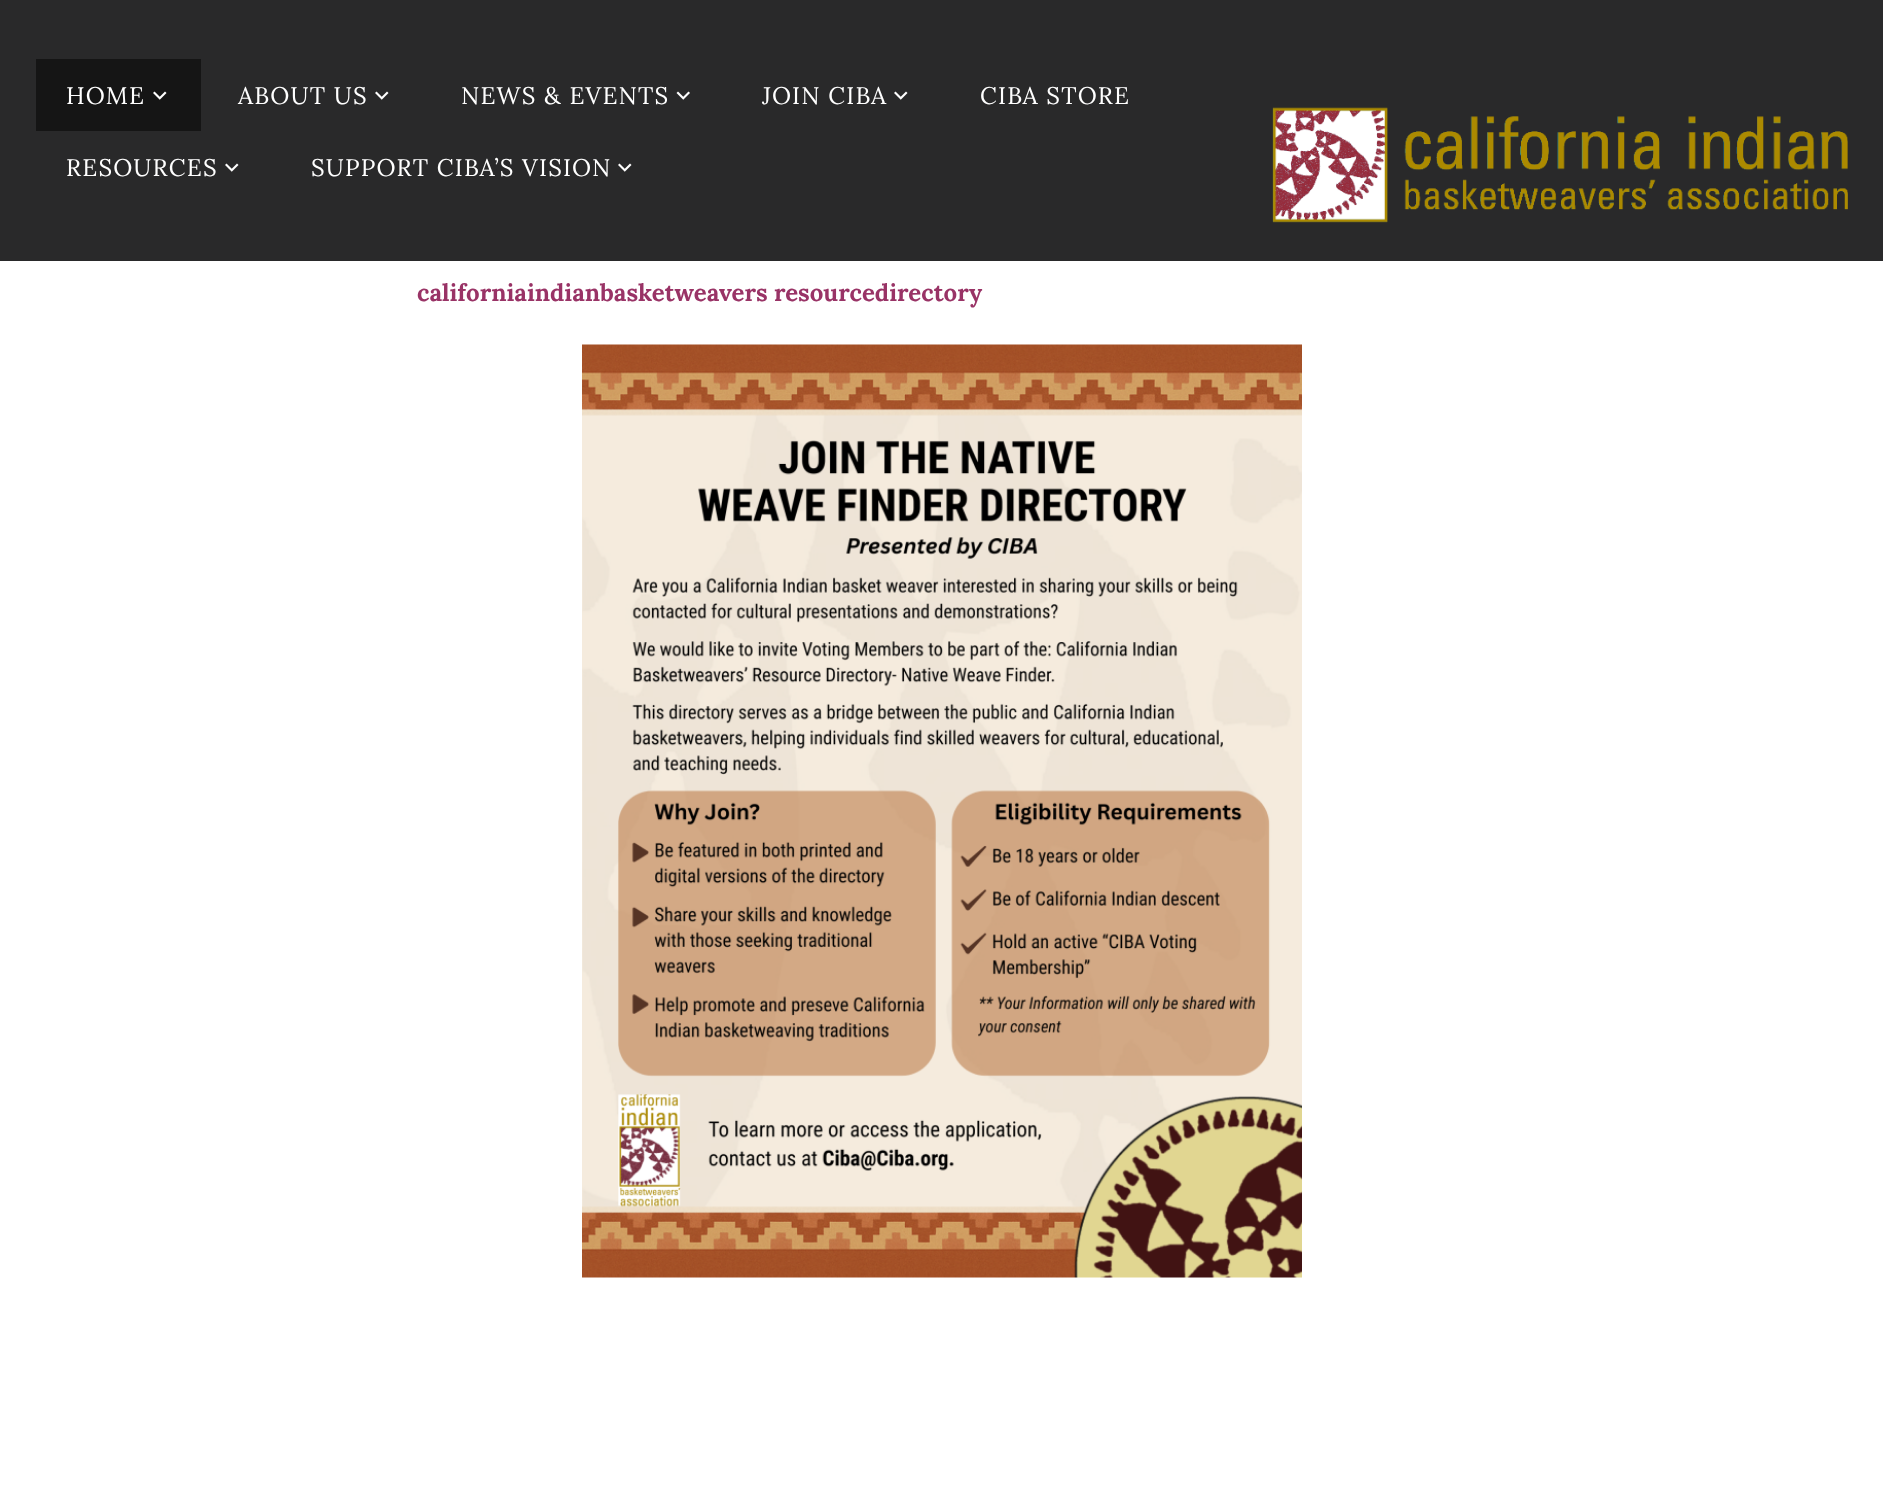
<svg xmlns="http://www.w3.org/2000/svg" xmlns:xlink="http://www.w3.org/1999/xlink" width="1883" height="1493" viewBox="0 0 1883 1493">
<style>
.cls-1{font:24px Lora;letter-spacing:1.2px;fill:#ffffff}
.cls-2{font:bold 24px Lora;fill:#993366}
</style>
<rect width="100%" height="100%" fill="#ffffff"/>
<rect fill="#29292a" x="0" y="0" width="1883" height="261"/>
<rect fill="#151515" x="36" y="59" width="165" height="72"/>
<image xlink:href="image0.png" x="153" y="91" width="14" height="9"/>
<image xlink:href="image1.png" x="375" y="91" width="14" height="9"/>
<image xlink:href="image2.png" x="676" y="91" width="14" height="9"/>
<image xlink:href="image1.png" x="894" y="91" width="14" height="9"/>
<image xlink:href="image1.png" x="225" y="163" width="14" height="9"/>
<image xlink:href="image1.png" x="618" y="163" width="14" height="9"/>
<image xlink:href="image3.png" x="1272" y="107" width="576" height="116"/>
<image xlink:href="image4.png" x="582" y="344" width="720" height="934"/>
<text class="cls-1" x="66" y="104">HOME</text>
<text class="cls-1" x="238" y="104">ABOUT US</text>
<text class="cls-1" x="461" y="104">NEWS &amp; EVENTS</text>
<text class="cls-1" x="762" y="104">JOIN CIBA</text>
<text class="cls-1" x="980" y="104">CIBA STORE</text>
<text class="cls-1" x="66" y="176">RESOURCES</text>
<text class="cls-1" x="311" y="176">SUPPORT CIBA’S VISION</text>
<text class="cls-2" x="417" y="301">californiaindianbasketweavers resourcedirectory</text>
</svg>
